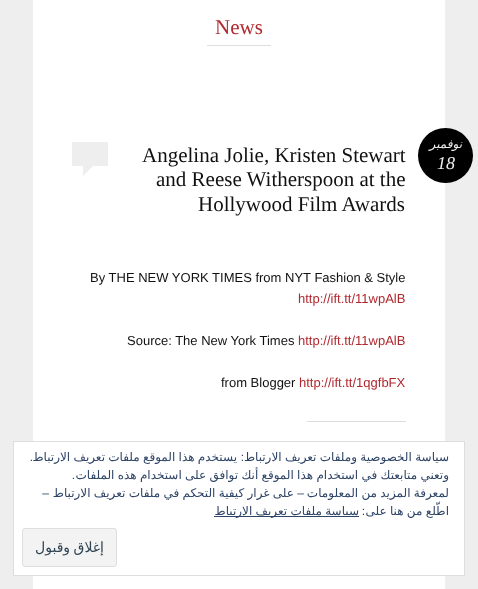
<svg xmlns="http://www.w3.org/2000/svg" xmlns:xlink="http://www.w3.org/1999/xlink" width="478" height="589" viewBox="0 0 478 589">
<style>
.cls-1{font:21px Liberation Serif;fill:#b12930}
.cls-2{font:italic 12px DejaVu Sans;direction:rtl;fill:#eeeeee}
.cls-3{font:italic 18px Liberation Serif;fill:#eeeeee}
.cls-4{font:21px Liberation Serif;fill:#111111}
.cls-5{font:13px Liberation Sans;fill:#111111}
.cls-6{font:13px Liberation Sans;fill:#b12930}
.cls-7{font:12px DejaVu Sans;direction:rtl;fill:#2e4467}
.cls-8{font:12px Liberation Sans;direction:rtl;fill:#2e4467}
.cls-9{font:14px DejaVu Sans;direction:rtl;fill:#2e4453}
</style>
<rect width="100%" height="100%" fill="#eeeeee"/>
<rect fill="#ffffff" x="33" y="0" width="412" height="589"/>
<rect fill="#dddddd" x="207" y="45" width="64" height="1"/>
<circle fill="#000000" cx="445.5" cy="155.5" r="27.5"/>
<rect fill="#eeeeee" x="72" y="142" width="36" height="24"/>
<path fill="#eeeeee" d="M83 176V166H93Z"/>
<rect fill="#dcdcde" x="307" y="421" width="99" height="1"/>
<rect fill="#ffffff" stroke="#dedede" x="13.5" y="441.5" width="451" height="134"/>
<rect fill="#2e4467" x="214" y="516" width="145" height="1"/>
<rect fill="#f3f3f3" stroke="#dedede" x="22.5" y="528.5" width="94" height="38" rx="2.5"/>
<text class="cls-1" x="215" y="34">News</text>
<text class="cls-2" x="462" y="148">نوفمبر</text>
<text class="cls-3" x="437" y="169">18</text>
<text class="cls-4" x="142" y="162">Angelina Jolie, Kristen Stewart</text>
<text class="cls-4" x="156" y="186">and Reese Witherspoon at the</text>
<text class="cls-4" x="198" y="211">Hollywood Film Awards</text>
<text class="cls-5" x="90" y="282">By THE NEW YORK TIMES from NYT Fashion &amp; Style</text>
<text class="cls-6" x="298" y="303">http://ift.tt/11wpAlB</text>
<text class="cls-6" x="298" y="345">http://ift.tt/11wpAlB</text>
<text class="cls-5" x="127" y="345">Source: The New York Times</text>
<text class="cls-6" x="299" y="387">http://ift.tt/1qgfbFX</text>
<text class="cls-5" x="221" y="387">from Blogger</text>
<text class="cls-7" x="449" y="461" word-spacing="-0.5">سياسة الخصوصية وملفات تعريف الارتباط</text>
<text class="cls-8" x="244" y="461">:</text>
<text class="cls-7" x="237" y="461" word-spacing="-0.5">يستخدم هذا الموقع ملفات تعريف الارتباط</text>
<text class="cls-8" x="33" y="461">.</text>
<text class="cls-7" x="449" y="479" word-spacing="-0.5">وتعني متابعتك في استخدام هذا الموقع أنك توافق على استخدام هذه الملفات</text>
<text class="cls-8" x="75" y="479">.</text>
<text class="cls-7" x="449" y="497" word-spacing="-0.5">لمعرفة المزيد من المعلومات</text>
<text class="cls-8" x="304" y="497">–</text>
<text class="cls-7" x="294" y="497" word-spacing="-0.5">على غرار كيفية التحكم في ملفات تعريف الارتباط</text>
<text class="cls-8" x="49" y="497">–</text>
<text class="cls-7" x="449" y="515" word-spacing="-0.5">اطّلع من هنا على</text>
<text class="cls-8" x="365" y="515">:</text>
<text class="cls-7" x="359" y="515" word-spacing="-0.5">سياسة ملفات تعريف الارتباط</text>
<text class="cls-9" x="104" y="552" word-spacing="-1">إغلاق وقبول</text>
</svg>
